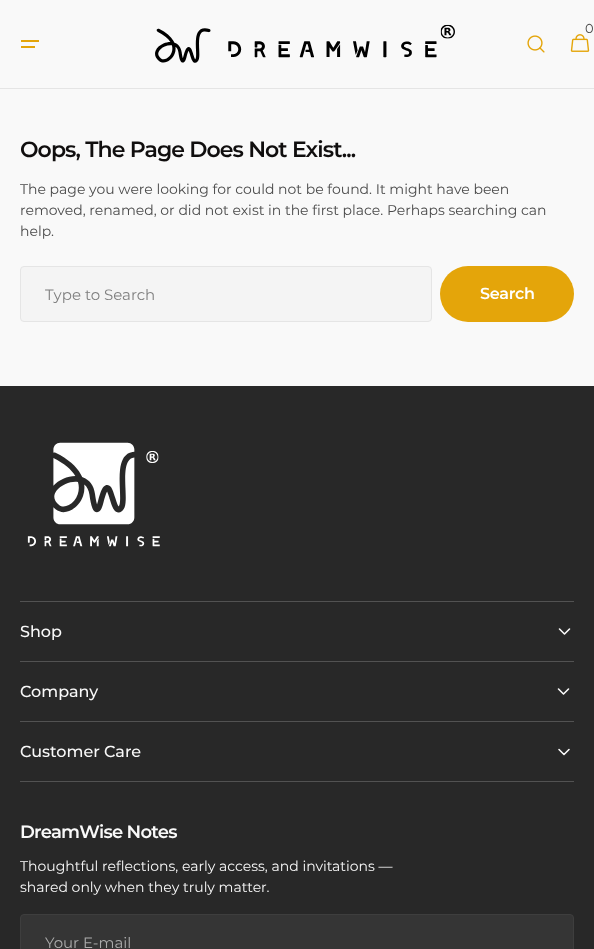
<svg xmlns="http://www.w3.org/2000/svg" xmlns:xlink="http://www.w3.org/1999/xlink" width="594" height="949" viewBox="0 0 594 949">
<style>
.cls-1{font:13px Montserrat;fill:#4a4a4a}
.cls-2{font:600 22px Montserrat;letter-spacing:-0.9px;fill:#100e0e}
.cls-3{font:14px Montserrat;fill:#4a4a4a}
.cls-4{font:15px Montserrat;fill:#7f7f7f}
.cls-5{font:600 16px Montserrat;letter-spacing:-0.25px;fill:#ffffff}
.cls-6{font:500 16px Montserrat;fill:#f9f9f9}
.cls-7{font:600 18px Montserrat;letter-spacing:-0.75px;fill:#f9f9f9}
.cls-8{font:14px Montserrat;fill:#f9f9f9}
.cls-9{font:15px Montserrat;fill:#ababab}
</style>
<rect width="100%" height="100%" fill="#f9f9f9"/>
<rect fill="#e4a50a" x="21" y="40" width="18" height="2"/>
<rect fill="#e4a50a" x="21" y="46" width="14" height="2"/>
<image xlink:href="image0.png" x="155" y="24" width="300" height="39"/>
<image xlink:href="image1.png" x="570" y="34" width="20" height="18"/>
<image xlink:href="image2.png" x="527" y="35" width="18" height="18"/>
<rect fill="#e5e5e5" x="0" y="88" width="594" height="1"/>
<rect fill="#f4f4f4" stroke="#e5e5e5" x="20.5" y="266.5" width="411" height="55" rx="3.5"/>
<rect fill="#e4a50a" x="440" y="266" width="134" height="56" rx="28"/>
<rect fill="#282828" x="0" y="386" width="594" height="563"/>
<image xlink:href="image3.png" x="27" y="442" width="133" height="105"/>
<rect fill="#525252" x="20" y="601" width="554" height="1"/>
<rect fill="#525252" x="20" y="661" width="554" height="1"/>
<path fill="none" stroke="#f9f9f9" stroke-width="1.6" stroke-linecap="round" stroke-linejoin="round" d="M569.5 629L564.5 634L559.5 629"/>
<rect fill="#525252" x="20" y="721" width="554" height="1"/>
<path fill="none" stroke="#f9f9f9" stroke-width="1.6" stroke-linecap="round" stroke-linejoin="round" d="M568.5 689L563.5 694L558.5 689"/>
<rect fill="#525252" x="20" y="781" width="554" height="1"/>
<path fill="none" stroke="#f9f9f9" stroke-width="1.6" stroke-linecap="round" stroke-linejoin="round" d="M569 749.5L564 754.5L559 749.5"/>
<rect fill="#353535" stroke="#3e3e3e" x="20.5" y="914.5" width="553" height="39" rx="3.5"/>
<text class="cls-1" x="585" y="33">0</text>
<text class="cls-2" x="20" y="157">Oops, The Page Does Not Exist...</text>
<text class="cls-3"><tspan x="20" y="194">The page you were looking for could not be found. It might have been</tspan><tspan x="20" y="215">removed, renamed, or did not exist in the first place. Perhaps searching can</tspan><tspan x="20" y="236">help.</tspan></text>
<text class="cls-4" x="45" y="300">Type to Search</text>
<text class="cls-5" x="480" y="299">Search</text>
<text class="cls-6" x="20" y="637">Shop</text>
<text class="cls-6" x="20" y="697">Company</text>
<text class="cls-6" x="20" y="757">Customer Care</text>
<text class="cls-7" x="20" y="838">DreamWise Notes</text>
<text class="cls-8"><tspan x="20" y="871">Thoughtful reflections, early access, and invitations —</tspan><tspan x="20" y="892">shared only when they truly matter.</tspan></text>
<text class="cls-9" x="45" y="948">Your E-mail</text>
</svg>
